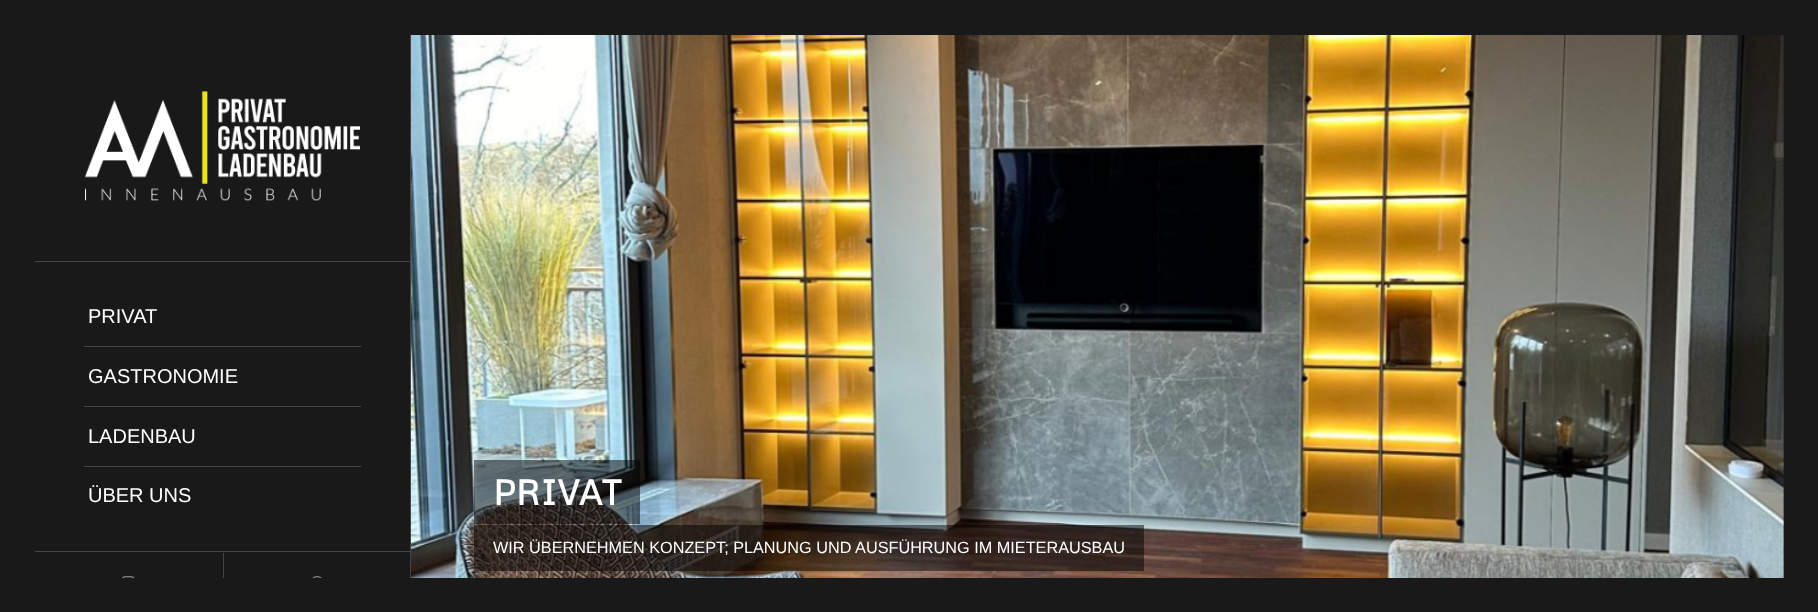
<svg xmlns="http://www.w3.org/2000/svg" xmlns:xlink="http://www.w3.org/1999/xlink" width="1818" height="612" viewBox="0 0 1818 612">
<style>
.cls-1{font:20px Liberation Sans;fill:#ffffff}
.cls-2{font:bold 35px Metrophobic;fill:#ffffff}
.cls-3{font:16.25px Liberation Sans;fill:#ffffff}
</style>
<rect width="100%" height="100%" fill="#191919"/>
<rect fill="#444444" x="35" y="261" width="375" height="1"/>
<image xlink:href="image0.png" x="85" y="91" width="275" height="110"/>
<rect fill="#444444" x="84" y="346" width="277" height="1"/>
<rect fill="#444444" x="84" y="406" width="277" height="1"/>
<rect fill="#444444" x="84" y="466" width="277" height="1"/>
<rect fill="#444444" x="35" y="551" width="375" height="1"/>
<image xlink:href="image1.png" x="122" y="576" width="13" height="2"/>
<rect fill="#444444" x="223" y="553" width="1" height="25"/>
<image xlink:href="image2.png" x="312" y="576" width="10" height="2"/>
<rect fill="#444444" x="410" y="35" width="1" height="543"/>
<image xlink:href="image3.png" x="411" y="35" width="1373" height="543"/>
<rect fill="#000000" fill-opacity="0.5" x="474" y="460" width="166" height="64"/>
<rect fill="#000000" fill-opacity="0.5" x="474" y="525" width="670" height="46"/>
<text class="cls-1" x="88" y="323">PRIVAT</text>
<text class="cls-1" x="88" y="383">GASTRONOMIE</text>
<text class="cls-1" x="88" y="443">LADENBAU</text>
<text class="cls-1" x="88" y="502">ÜBER UNS</text>
<text class="cls-2" x="493" y="505">PRIVAT</text>
<text class="cls-3" x="493" y="553">WIR ÜBERNEHMEN KONZEPT; PLANUNG UND AUSFÜHRUNG IM MIETERAUSBAU</text>
</svg>
